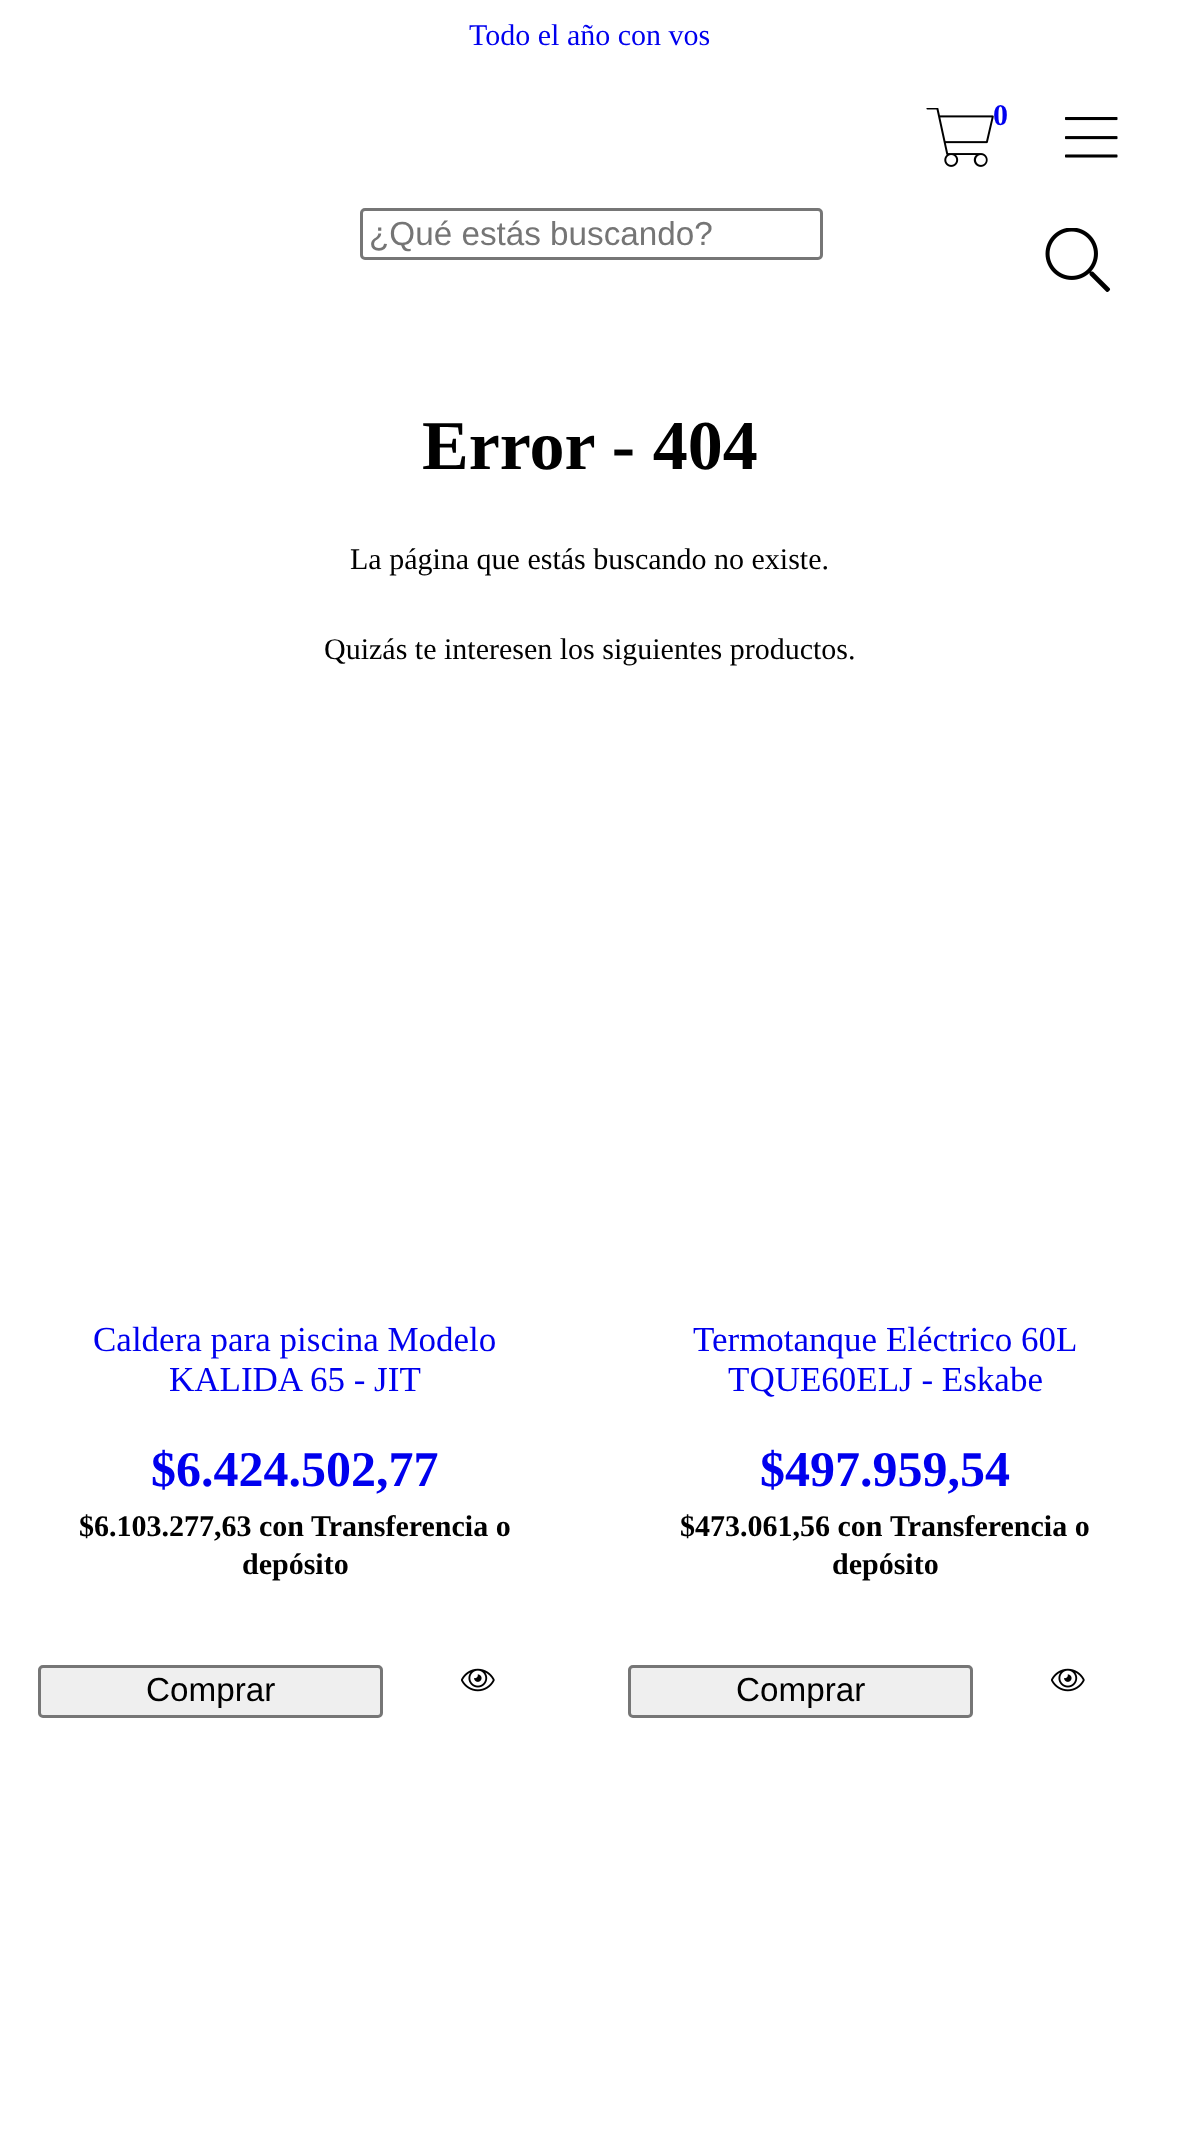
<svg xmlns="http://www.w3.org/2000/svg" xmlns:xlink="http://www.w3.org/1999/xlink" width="1180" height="2130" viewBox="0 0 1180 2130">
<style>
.cls-1{font:30px Liberation Serif;fill:#0000ee}
.cls-2{font:bold 30px Liberation Serif;fill:#0000ee}
.cls-3{font:33.25px Liberation Sans;fill:#757575}
.cls-4{font:bold 70px Liberation Serif;fill:#000000}
.cls-5{font:30px Liberation Serif;fill:#000000}
.cls-6{font:35px Liberation Serif;fill:#0000ee}
.cls-7{font:bold 50px Liberation Serif;fill:#0000ee}
.cls-8{font:bold 30px Liberation Serif;fill:#000000}
.cls-9{font:33.25px Liberation Sans;fill:#000000}
</style>
<rect width="100%" height="100%" fill="#ffffff"/>
<image xlink:href="image0.png" x="926" y="108" width="68" height="59"/>
<image xlink:href="image1.png" x="1065" y="117" width="53" height="41"/>
<rect fill="none" stroke="#767676" stroke-width="3" x="361.5" y="209.5" width="460" height="49" rx="3.5"/>
<image xlink:href="image2.png" x="1045" y="228" width="66" height="64"/>
<rect fill="#efefef" stroke="#767676" stroke-width="3" x="39.5" y="1666.5" width="342" height="50" rx="3.5"/>
<image xlink:href="image3.png" x="461" y="1668" width="34" height="24"/>
<rect fill="#efefef" stroke="#767676" stroke-width="3" x="629.5" y="1666.5" width="342" height="50" rx="3.5"/>
<image xlink:href="image3.png" x="1051" y="1668" width="34" height="24"/>
<text class="cls-1" x="469" y="45">Todo el año con vos</text>
<text class="cls-2" x="993" y="125">0</text>
<text class="cls-3" x="369" y="245">¿Qué estás buscando?</text>
<text class="cls-4" x="422" y="469">Error - 404</text>
<text class="cls-5" x="350" y="569">La página que estás buscando no existe.</text>
<text class="cls-5" x="324" y="659">Quizás te interesen los siguientes productos.</text>
<text class="cls-6" x="93" y="1351">Caldera para piscina Modelo</text>
<text class="cls-6" x="169" y="1391">KALIDA 65 - JIT</text>
<text class="cls-7" x="151" y="1486">$6.424.502,77</text>
<text class="cls-8" x="79" y="1536">$6.103.277,63 con</text>
<text class="cls-8" x="311" y="1536">Transferencia o</text>
<text class="cls-8" x="242" y="1574">depósito</text>
<text class="cls-9" x="146" y="1701">Comprar</text>
<text class="cls-6" x="693" y="1351">Termotanque Eléctrico 60L</text>
<text class="cls-6" x="728" y="1391">TQUE60ELJ - Eskabe</text>
<text class="cls-7" x="760" y="1486">$497.959,54</text>
<text class="cls-8" x="680" y="1536">$473.061,56 con</text>
<text class="cls-8" x="890" y="1536">Transferencia o</text>
<text class="cls-8" x="832" y="1574">depósito</text>
<text class="cls-9" x="736" y="1701">Comprar</text>
</svg>
